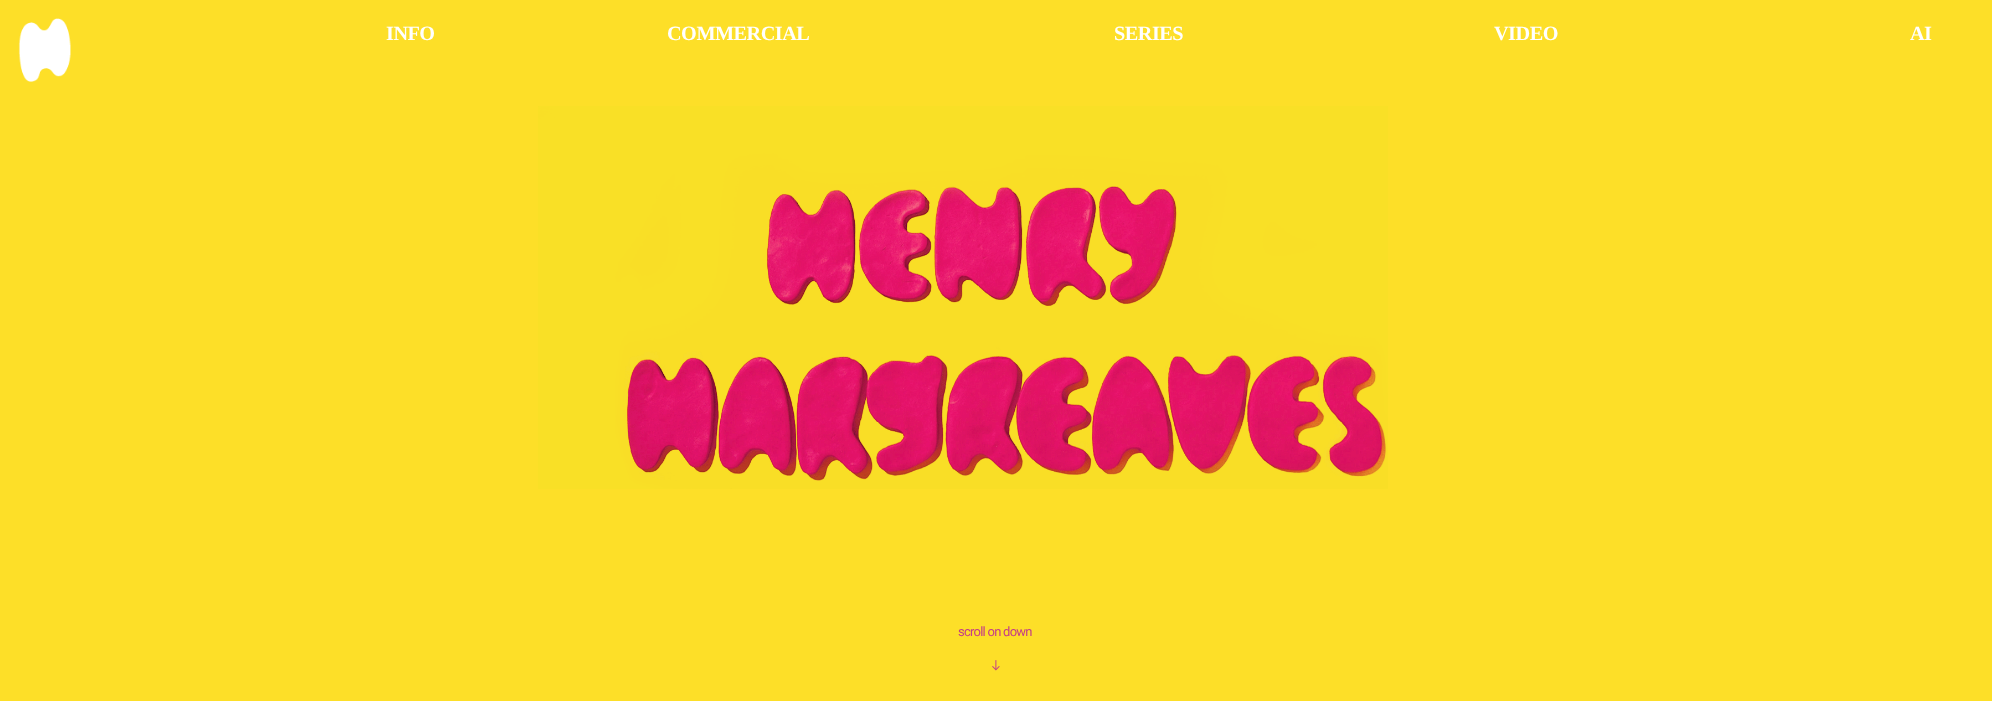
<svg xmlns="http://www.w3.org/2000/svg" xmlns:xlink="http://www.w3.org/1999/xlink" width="1992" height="701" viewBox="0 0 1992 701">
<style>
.cls-1{font:bold 20.25px Liberation Serif;letter-spacing:-0.5px;fill:#ffffff}
.cls-2{font:13px Roboto;letter-spacing:-0.75px;fill:#c43d87}
</style>
<rect width="100%" height="100%" fill="#fddf28"/>
<image xlink:href="image0.png" x="18" y="18" width="53" height="64"/>
<image xlink:href="image1.png" x="538" y="106" width="850" height="383"/>
<image xlink:href="image2.png" x="992" y="660" width="8" height="11"/>
<text class="cls-1" x="386" y="40">INFO</text>
<text class="cls-1" x="667" y="40">COMMERCIAL</text>
<text class="cls-1" x="1114" y="40">SERIES</text>
<text class="cls-1" x="1494" y="40">VIDEO</text>
<text class="cls-1" x="1910" y="40">AI</text>
<text class="cls-2" x="958" y="636">scroll on down</text>
</svg>
